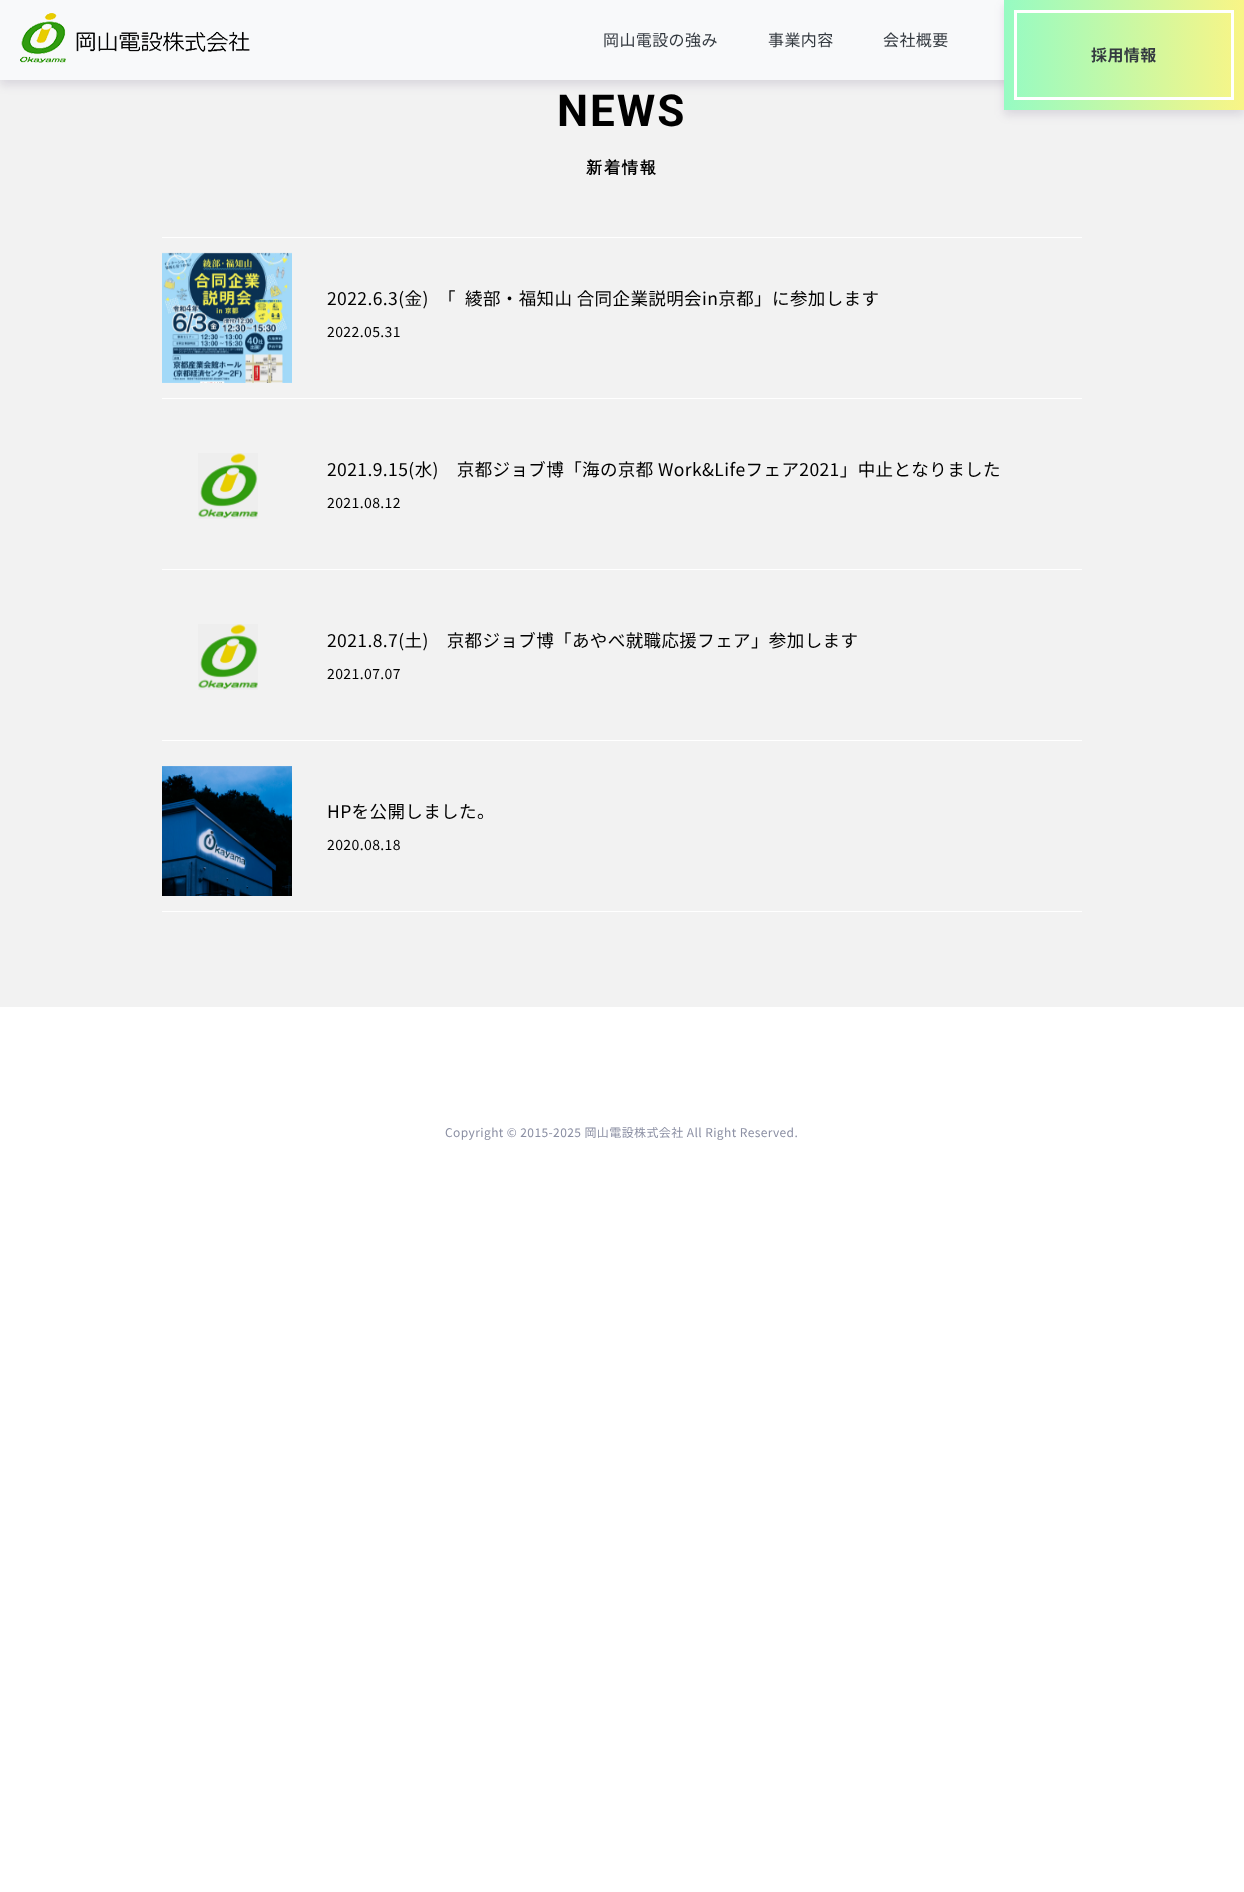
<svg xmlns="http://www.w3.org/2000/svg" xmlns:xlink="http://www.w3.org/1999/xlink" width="1244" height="1892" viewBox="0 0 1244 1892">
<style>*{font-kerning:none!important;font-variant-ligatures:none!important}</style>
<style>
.cls-1{font:16px Noto Sans JP;letter-spacing:0.4px;fill:#343a40}
.cls-2{font:bold 16px Noto Sans JP;letter-spacing:0.4px;fill:#343a40}
.cls-3{font:bold 44px Roboto;letter-spacing:2px;fill:#000000}
.cls-4{font:bold 16px WenQuanYi Zen Hei;letter-spacing:2px;fill:#000000}
.cls-5{font:17.5px Noto Sans JP;letter-spacing:0.4px;fill:#000000}
.cls-6{font:14px Noto Sans JP;letter-spacing:0.4px;fill:#000000}
.cls-7{font:12px Noto Sans JP;letter-spacing:0.4px;fill:#8b8fa3}
</style>
<defs>
<linearGradient id="g1" gradientUnits="userSpaceOnUse" x1="1244" y1="55" x2="1004" y2="55"><stop offset="0" stop-color="#f9f586"/><stop offset="1" stop-color="#96fbc3"/></linearGradient>
</defs>
<rect width="100%" height="100%" fill="#ffffff"/>
<rect fill="#f2f2f2" x="0" y="80" width="1244" height="927"/>
<rect fill="#523f69" fill-opacity="0.15" filter="blur(5px)" x="0" y="5" width="1244" height="80"/>
<rect fill="#f8f9fa" x="0" y="0" width="1004" height="80"/>
<image xlink:href="image0.png" x="20" y="13" width="230" height="50"/>
<rect fill="#523f69" fill-opacity="0.15" filter="blur(5px)" x="1004" y="5" width="240" height="110"/>
<rect fill="url(#g1)" x="1004" y="0" width="240" height="110"/>
<rect fill="none" stroke="#ffffff" stroke-width="3" x="1015.5" y="11.5" width="217" height="87"/>
<rect fill="#ffffff" x="162" y="237" width="920" height="1"/>
<rect fill="#ffffff" x="162" y="398" width="920" height="1"/>
<image xlink:href="image1.png" x="162" y="252" width="130" height="131"/>
<rect fill="#ffffff" x="162" y="569" width="920" height="1"/>
<image xlink:href="image2.png" x="198" y="453" width="60" height="66"/>
<rect fill="#ffffff" x="162" y="740" width="920" height="1"/>
<image xlink:href="image2.png" x="198" y="624" width="60" height="66"/>
<rect fill="#ffffff" x="162" y="911" width="920" height="1"/>
<image xlink:href="image3.png" x="162" y="766" width="130" height="130"/>
<text class="cls-1" x="603" y="46">岡山電設の強み</text>
<text class="cls-1" x="768" y="46">事業内容</text>
<text class="cls-1" x="883" y="46">会社概要</text>
<text class="cls-2" x="1091" y="61">採用情報</text>
<text class="cls-3" x="557" y="126">NEWS</text>
<text class="cls-4" x="586" y="173">新着情報</text>
<text class="cls-5" x="327" y="305">2022.6.3(金)　「</text>
<text class="cls-5" x="465" y="305">綾部・福知山 合同企業説明会in京都」に参加します</text>
<text class="cls-6" x="327" y="337">2022.05.31</text>
<text class="cls-5" x="327" y="476">2021.9.15(水)　京都ジョブ博「海の京都 Work&amp;Lifeフェア2021」中止となりました</text>
<text class="cls-6" x="327" y="508">2021.08.12</text>
<text class="cls-5" x="327" y="647">2021.8.7(土)　京都ジョブ博「あやべ就職応援フェア」参加します</text>
<text class="cls-6" x="327" y="679">2021.07.07</text>
<text class="cls-5" x="327" y="818">HPを公開しました。</text>
<text class="cls-6" x="327" y="850">2020.08.18</text>
<text class="cls-7" x="445" y="1137">Copyright © 2015-2025 岡山電設株式会社 All Right Reserved.</text>
</svg>
